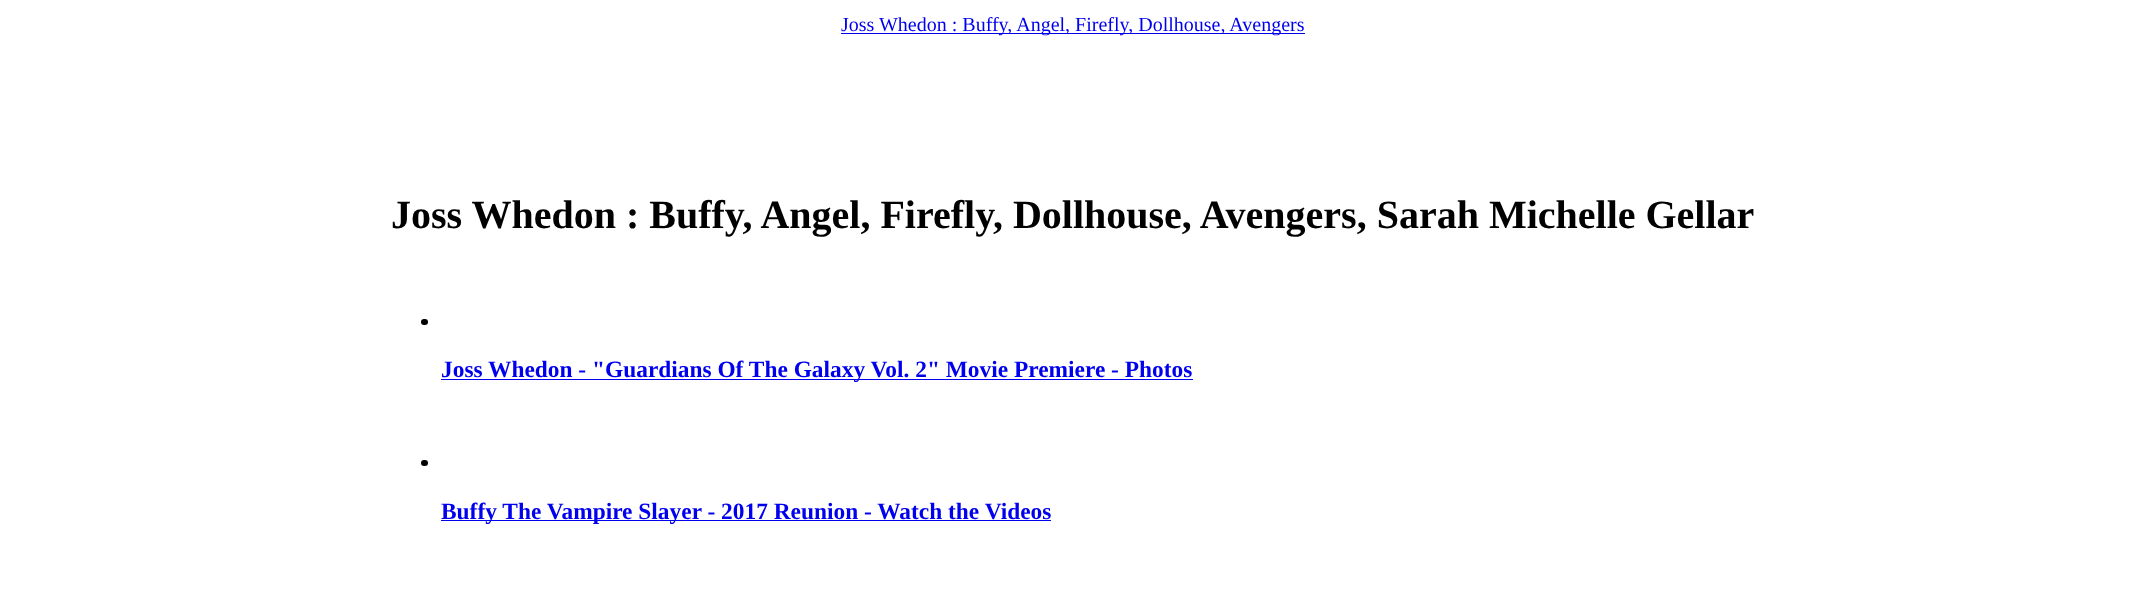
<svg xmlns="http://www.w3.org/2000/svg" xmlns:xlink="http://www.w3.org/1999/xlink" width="2151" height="595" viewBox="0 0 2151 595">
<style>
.cls-1{font:20px Liberation Serif;fill:#0000ee}
.cls-2{font:bold 40px Liberation Serif;fill:#000000}
.cls-3{font:bold 23.4px Liberation Serif;fill:#0000ee}
</style>
<rect width="100%" height="100%" fill="#ffffff"/>
<rect fill="#0000ee" x="841" y="33" width="464" height="1"/>
<rect fill="#000000" x="421" y="319" width="7" height="6" rx="3"/>
<rect fill="#0000ee" x="441" y="379" width="752" height="1"/>
<rect fill="#000000" x="421" y="460" width="7" height="6" rx="3"/>
<rect fill="#0000ee" x="441" y="520" width="610" height="1"/>
<text class="cls-1" x="841" y="31">Joss Whedon : Buffy, Angel, Firefly, Dollhouse, Avengers</text>
<text class="cls-2" x="391" y="228">Joss Whedon : Buffy, Angel, Firefly, Dollhouse, Avengers, Sarah Michelle Gellar</text>
<text class="cls-3" x="441" y="377">Joss Whedon - "Guardians Of The Galaxy Vol. 2" Movie Premiere - Photos</text>
<text class="cls-3" x="441" y="519">Buffy The Vampire Slayer - 2017 Reunion - Watch the Videos</text>
</svg>
